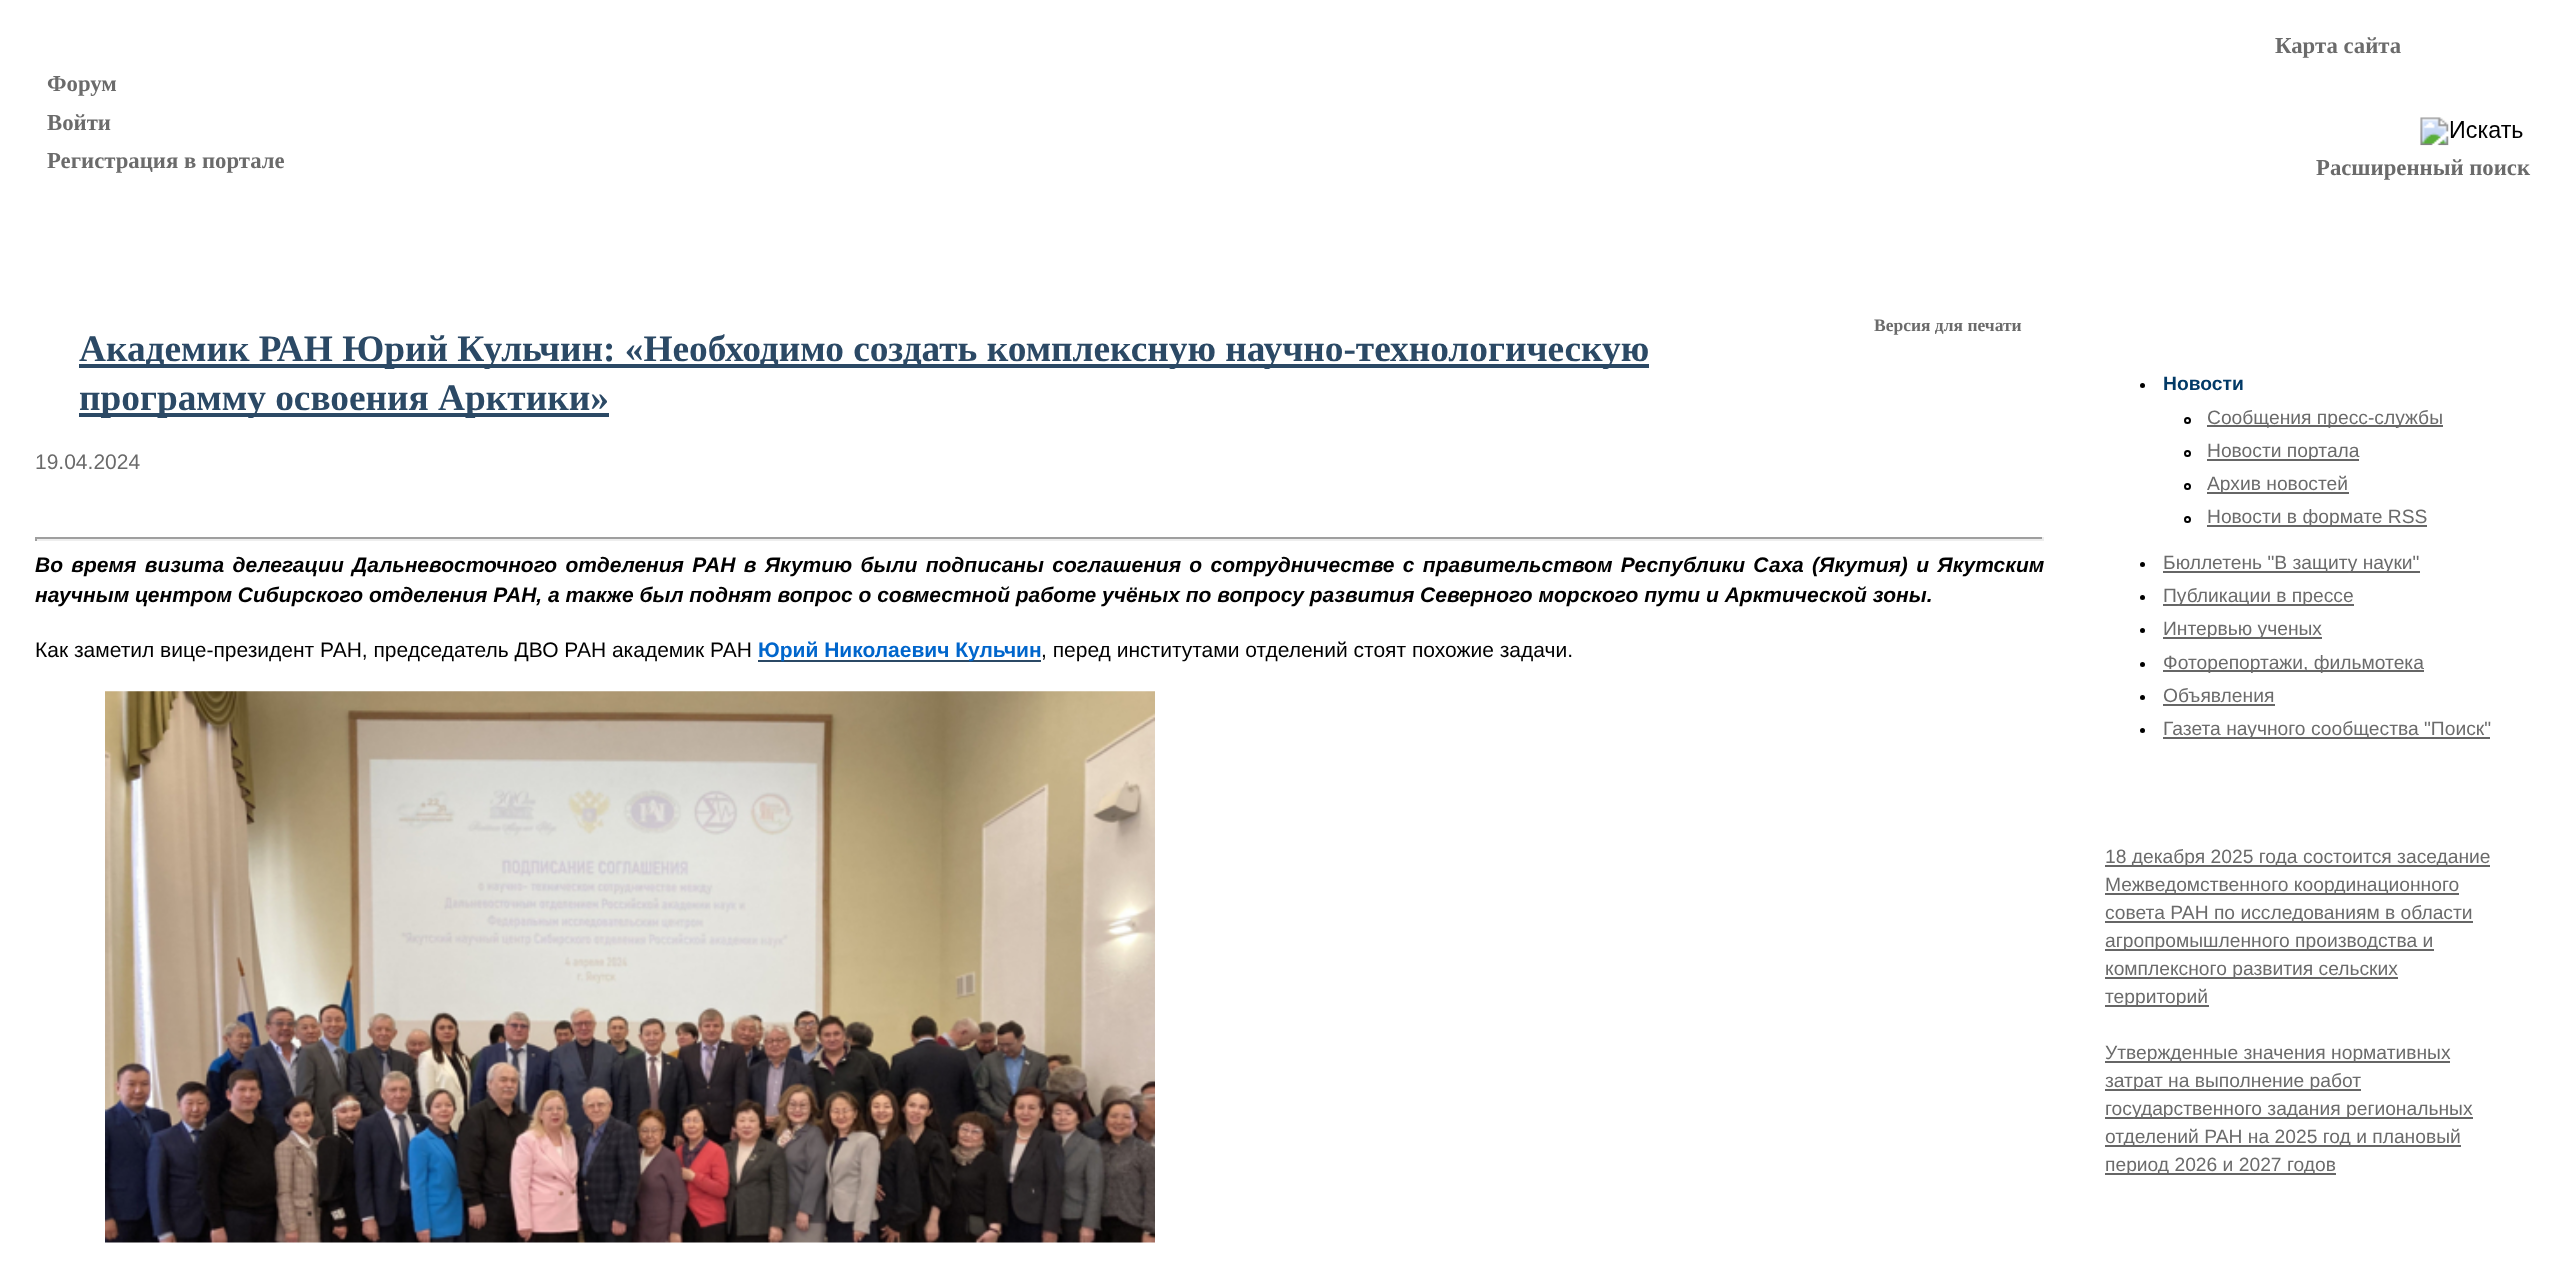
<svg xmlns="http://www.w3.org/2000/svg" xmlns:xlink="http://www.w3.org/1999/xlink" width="2551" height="1283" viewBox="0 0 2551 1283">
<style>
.cls-1{font:bold 22.75px Liberation Serif;fill:#6b6b6b}
.cls-2{font:bold 17.5px Liberation Serif;fill:#6b6b6b}
.cls-3{font:bold 37.35px Liberation Serif;fill:#2b4965}
.cls-4{font:21px Liberation Sans;fill:#6b6b6b}
.cls-5{font:italic bold 21px Liberation Sans;fill:#000000}
.cls-6{font:21px Liberation Sans;fill:#000000}
.cls-7{font:bold 21px Liberation Sans;fill:#0066cc}
.cls-8{font:bold 19.25px Liberation Sans;fill:#023a67}
.cls-9{font:19.25px Liberation Sans;fill:#6b6b6b}
</style>
<rect width="100%" height="100%" fill="#ffffff"/>
<image xlink:href="image0.png" x="2420" y="117" width="103" height="29"/>
<rect fill="#2b4965" x="79" y="364" width="1570" height="4"/>
<rect fill="#2b4965" x="79" y="413" width="530" height="4"/>
<rect fill="#9f9f9f" x="35" y="537" width="2009" height="2"/>
<rect fill="#eeeeee" x="2042" y="537" width="2" height="4"/>
<rect fill="#eeeeee" x="35" y="539" width="2009" height="2"/>
<rect fill="#9f9f9f" x="35" y="537" width="2" height="4"/>
<rect fill="#2b4965" x="758" y="660" width="283" height="2"/>
<image xlink:href="image1.png" x="105" y="691" width="1050" height="552"/>
<circle fill="#000000" cx="2142.5" cy="385.5" r="2.5"/>
<circle fill="none" stroke="#000000" stroke-width="2" cx="2187.5" cy="420.5" r="2.5"/>
<rect fill="#666666" x="2207" y="425" width="236" height="2"/>
<circle fill="none" stroke="#000000" stroke-width="2" cx="2187.5" cy="453.5" r="2.5"/>
<rect fill="#666666" x="2207" y="459" width="152" height="2"/>
<circle fill="none" stroke="#000000" stroke-width="2" cx="2187.5" cy="486.5" r="2.5"/>
<rect fill="#666666" x="2207" y="492" width="142" height="2"/>
<circle fill="none" stroke="#000000" stroke-width="2" cx="2187.5" cy="519.5" r="2.5"/>
<rect fill="#666666" x="2207" y="525" width="220" height="2"/>
<circle fill="#000000" cx="2142.5" cy="564.5" r="2.5"/>
<rect fill="#666666" x="2163" y="571" width="257" height="2"/>
<circle fill="#000000" cx="2142.5" cy="597.5" r="2.5"/>
<rect fill="#666666" x="2163" y="604" width="191" height="2"/>
<circle fill="#000000" cx="2142.5" cy="630.5" r="2.5"/>
<rect fill="#666666" x="2163" y="637" width="159" height="2"/>
<circle fill="#000000" cx="2142.5" cy="664.5" r="2.5"/>
<rect fill="#666666" x="2163" y="670" width="261" height="2"/>
<circle fill="#000000" cx="2142.5" cy="697.5" r="2.5"/>
<rect fill="#666666" x="2163" y="704" width="112" height="2"/>
<circle fill="#000000" cx="2142.5" cy="730.5" r="2.5"/>
<rect fill="#666666" x="2163" y="737" width="327" height="2"/>
<rect fill="#666666" x="2105" y="865" width="385" height="2"/>
<rect fill="#666666" x="2105" y="893" width="354" height="2"/>
<rect fill="#666666" x="2105" y="921" width="368" height="2"/>
<rect fill="#666666" x="2105" y="949" width="329" height="2"/>
<rect fill="#666666" x="2105" y="977" width="293" height="2"/>
<rect fill="#666666" x="2105" y="1005" width="104" height="2"/>
<rect fill="#666666" x="2105" y="1061" width="345" height="2"/>
<rect fill="#666666" x="2105" y="1089" width="256" height="2"/>
<rect fill="#666666" x="2105" y="1117" width="368" height="2"/>
<rect fill="#666666" x="2105" y="1145" width="356" height="2"/>
<rect fill="#666666" x="2105" y="1173" width="231" height="2"/>
<text class="cls-1"><tspan x="47" y="91">Форум</tspan><tspan x="47" y="130">Войти</tspan><tspan x="47" y="168">Регистрация в портале</tspan></text>
<text class="cls-1" x="2275" y="53">Карта сайта</text>
<text class="cls-1" x="2316" y="175">Расширенный поиск</text>
<text class="cls-2" x="1874" y="331">Версия для печати</text>
<text class="cls-3"><tspan x="79" y="361">Академик РАН Юрий Кульчин: «Необходимо создать комплексную научно-технологическую</tspan><tspan x="79" y="410">программу освоения Арктики»</tspan></text>
<text class="cls-4" x="35" y="469">19.04.2024</text>
<text class="cls-5"><tspan x="35" y="572" word-spacing="2.5">Во время визита делегации Дальневосточного отделения РАН в Якутию были подписаны соглашения о сотрудничестве с правительством Республики Саха (Якутия) и Якутским</tspan><tspan x="35" y="602">научным центром Сибирского отделения РАН, а также был поднят вопрос о совместной работе учёных по вопросу развития Северного морского пути и Арктической зоны.</tspan></text>
<text class="cls-6" x="35" y="657">Как заметил вице-президент РАН, председатель ДВО РАН академик РАН</text>
<text class="cls-7" x="758" y="657">Юрий Николаевич Кульчин</text>
<text class="cls-6" x="1041" y="657">, перед институтами отделений стоят похожие задачи.</text>
<text class="cls-8" x="2163" y="390">Новости</text>
<text class="cls-9"><tspan x="2207" y="424">Сообщения пресс-службы</tspan><tspan x="2207" y="457">Новости портала</tspan><tspan x="2207" y="490">Архив новостей</tspan><tspan x="2207" y="523">Новости в формате RSS</tspan></text>
<text class="cls-9"><tspan x="2163" y="569">Бюллетень "В защиту науки"</tspan><tspan x="2163" y="602">Публикации в прессе</tspan><tspan x="2163" y="635">Интервью ученых</tspan><tspan x="2163" y="669">Фоторепортажи, фильмотека</tspan><tspan x="2163" y="702">Объявления</tspan><tspan x="2163" y="735">Газета научного сообщества "Поиск"</tspan></text>
<text class="cls-9"><tspan x="2105" y="863">18 декабря 2025 года состоится заседание</tspan><tspan x="2105" y="891">Межведомственного координационного</tspan><tspan x="2105" y="919">совета РАН по исследованиям в области</tspan><tspan x="2105" y="947">агропромышленного производства и</tspan><tspan x="2105" y="975">комплексного развития сельских</tspan><tspan x="2105" y="1003">территорий</tspan></text>
<text class="cls-9"><tspan x="2105" y="1059">Утвержденные значения нормативных</tspan><tspan x="2105" y="1087">затрат на выполнение работ</tspan><tspan x="2105" y="1115">государственного задания региональных</tspan><tspan x="2105" y="1143">отделений РАН на 2025 год и плановый</tspan><tspan x="2105" y="1171">период 2026 и 2027 годов</tspan></text>
</svg>
